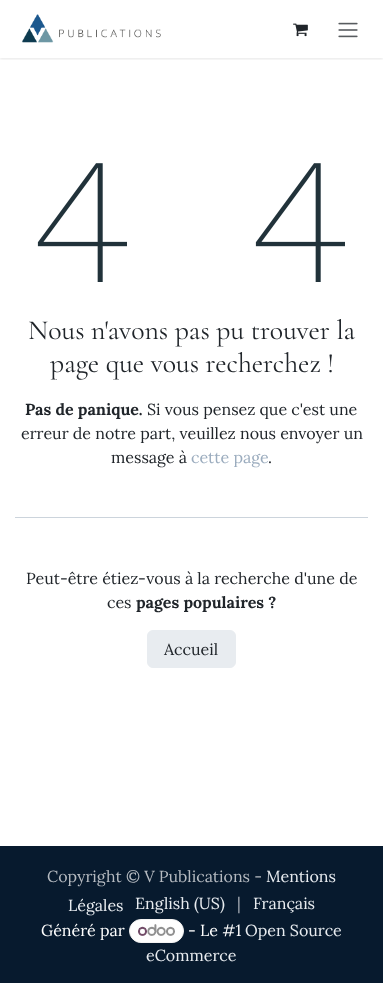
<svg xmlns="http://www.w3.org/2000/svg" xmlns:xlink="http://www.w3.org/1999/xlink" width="383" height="983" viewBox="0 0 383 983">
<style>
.cls-1{font:27.75px Cormorant Garamond;fill:#20252a}
.cls-2{font:bold 16px Lora;fill:#20252a}
.cls-3{font:16px Lora;fill:#20252a}
.cls-4{font:16px Lora;fill:#9bacbe}
.cls-5{font:16px Lora;fill:#b5bac0}
.cls-6{font:16px Lora;fill:#e8ecf0}
.cls-7{font:16px Lora;fill:#ffffff}
</style>
<defs>
<clipPath id="clip1"><rect x="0" y="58" width="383" height="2"/></clipPath>
</defs>
<rect width="100%" height="100%" fill="#ffffff"/>
<g clip-path="url(#clip1)">
<rect fill="#000000" fill-opacity="0.1" filter="blur(1.5px)" x="0" y="1" width="383" height="58"/>
</g>
<image xlink:href="image0.png" x="21" y="14" width="140" height="29"/>
<image xlink:href="image1.png" x="293" y="23" width="15" height="14"/>
<image xlink:href="image2.png" x="338" y="22" width="20" height="16"/>
<image xlink:href="image3.png" x="37" y="163" width="308" height="119"/>
<rect fill="#ccd4dc" x="15" y="517" width="353" height="1"/>
<rect fill="#e8ecf0" stroke="#e8ecf0" x="147.5" y="630.5" width="88" height="37" rx="5.5"/>
<rect fill="#071a2e" x="0" y="846" width="383" height="137"/>
<rect fill="#fefefe" stroke="#f3f2f2" x="129.5" y="919.5" width="54" height="23" rx="11.5"/>
<image xlink:href="image4.png" x="138" y="924" width="37" height="12"/>
<text class="cls-1" x="28" y="339">Nous n'avons pas pu trouver la</text>
<text class="cls-1" x="50" y="372">page que vous recherchez !</text>
<text class="cls-2" x="25" y="415">Pas de panique.</text>
<text class="cls-3" x="147" y="415">Si vous pensez que c'est une</text>
<text class="cls-3" x="21" y="439">erreur de notre part, veuillez nous envoyer un</text>
<text class="cls-3" x="111" y="463">message à</text>
<text class="cls-4" x="191" y="463">cette page</text>
<text class="cls-3" x="268" y="463">.</text>
<text class="cls-3" x="26" y="584">Peut-être étiez-vous à la recherche d'une de</text>
<text class="cls-3" x="107" y="608">ces</text>
<text class="cls-2" x="136" y="608">pages populaires ?</text>
<text class="cls-3" x="164" y="655">Accueil</text>
<text class="cls-5" x="47" y="882">Copyright © V Publications -</text>
<text class="cls-6" x="266" y="882">Mentions</text>
<text class="cls-6" x="68" y="911">Légales</text>
<text class="cls-6" x="135" y="909">English (US)</text>
<text class="cls-5" x="237" y="909">|</text>
<text class="cls-6" x="253" y="909">Français</text>
<text class="cls-7" x="41" y="936">Généré par</text>
<text class="cls-7" x="188" y="936">- Le #1</text>
<text class="cls-6" x="245" y="936">Open Source</text>
<text class="cls-6" x="146" y="961">eCommerce</text>
</svg>
